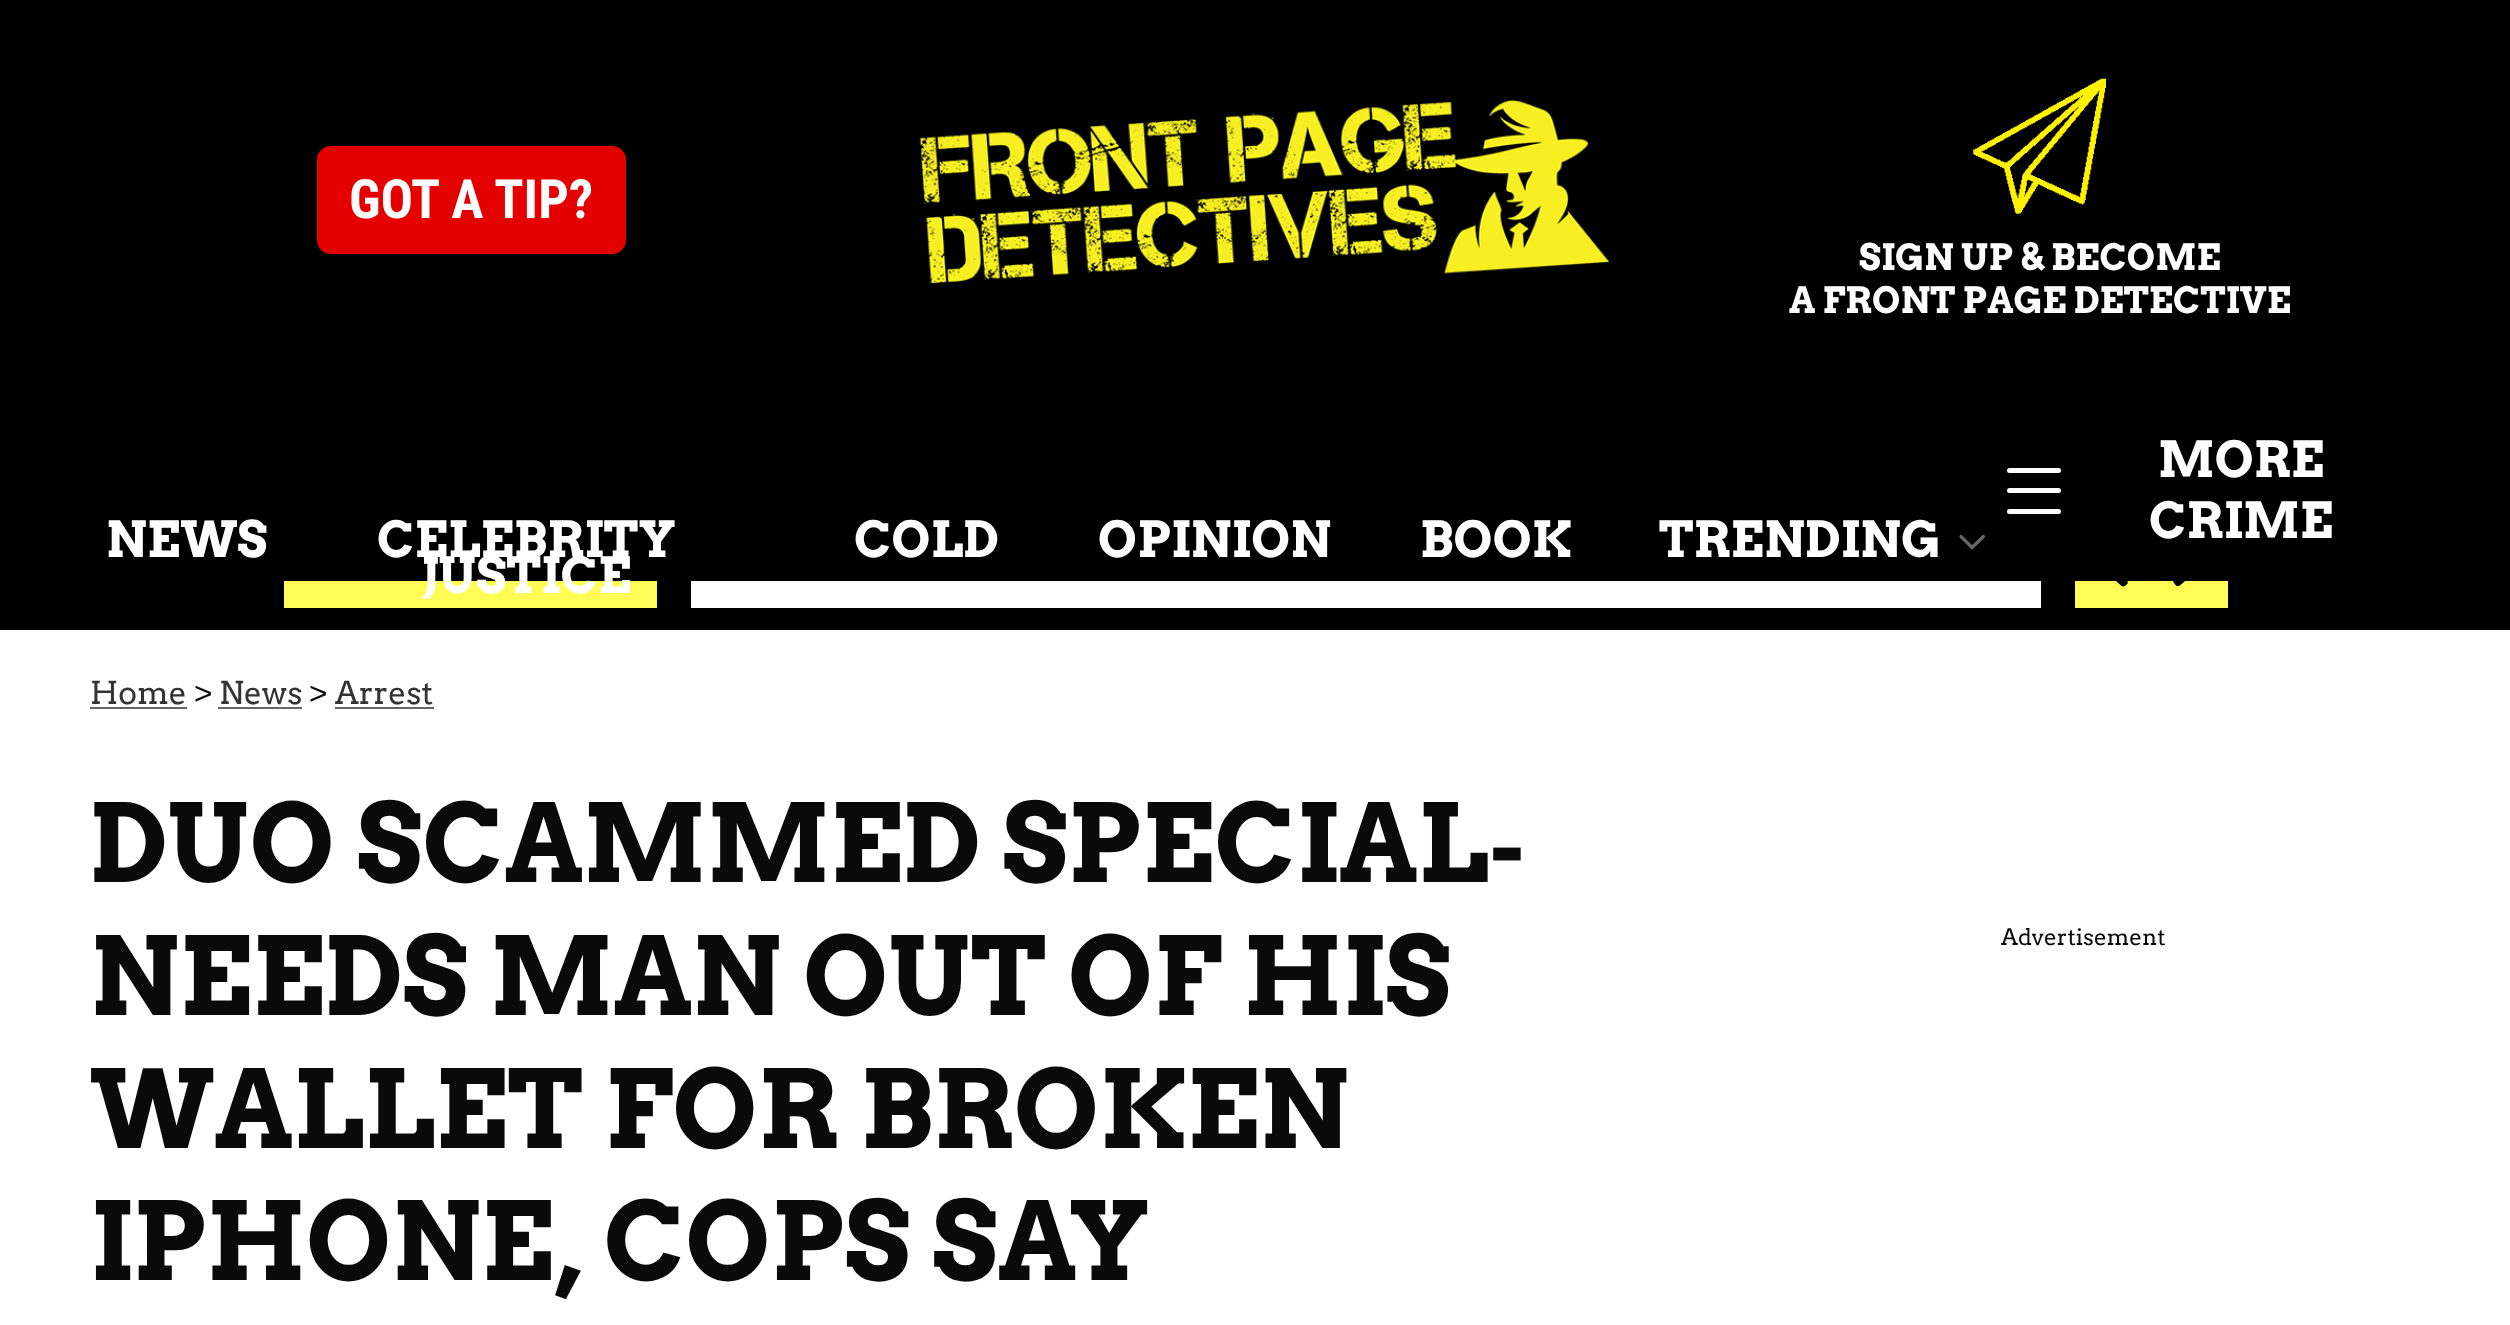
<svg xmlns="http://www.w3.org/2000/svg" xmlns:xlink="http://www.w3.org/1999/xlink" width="2510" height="1325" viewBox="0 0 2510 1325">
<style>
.cls-1{font:bold 54px Roboto Condensed;fill:#ffffff}
.cls-2{font:bold 36px Arvo;fill:#ffffff}
.cls-3{font:bold 49.5px Arvo;fill:#ffffff}
.cls-4{font:31.5px Arvo;fill:#333333}
.cls-5{font:31.5px Liberation Sans;fill:#0a0a0a}
.cls-6{font:bold 108px Arvo;fill:#0a0a0a}
.cls-7{font:bold 108px Liberation Sans;fill:#0a0a0a}
.cls-8{font:22.5px Arvo;fill:#0a0a0a}
</style>
<rect width="100%" height="100%" fill="#ffffff"/>
<rect fill="#000000" x="0" y="0" width="2510" height="401"/>
<rect fill="#e50000" x="317" y="146" width="309" height="108" rx="14"/>
<image xlink:href="image0.png" x="919" y="100" width="690" height="184"/>
<image xlink:href="image1.png" x="1973" y="78" width="133" height="136"/>
<rect fill="#000000" x="0" y="581" width="2510" height="49"/>
<rect fill="#fffd55" x="2075" y="581" width="153" height="27"/>
<path fill="#000000" d="M2107 560C2110 557 2128 541 2128 538C2128 536 2126 535 2125 534C2122 531 2119 537 2117 538L2105 550C2104 552 2096 557 2097 560V561L2117 582C2119 583 2122 588 2125 586L2128 583L2127 580Z"/>
<path fill="#000000" d="M2204 558L2184 538C2182 537 2179 531 2176 534C2175 535 2173 537 2173 538C2174 541 2191 557 2194 560L2174 580C2173 581 2173 582 2174 583C2178 589 2180 585 2184 582L2200 566C2201 564 2207 561 2204 558Z"/>
<rect fill="#000000" x="0" y="401" width="2510" height="180"/>
<path fill="none" stroke="#666666" stroke-width="3.2" stroke-linecap="round" stroke-linejoin="round" d="M1983.5 536.5L1972 547.5L1961 536.5"/>
<rect fill="#ffffff" x="2007" y="488" width="54" height="5" rx="2.5"/>
<rect fill="#ffffff" x="2007" y="468" width="54" height="5" rx="2.5"/>
<rect fill="#ffffff" x="2007" y="509" width="54" height="5" rx="2.5"/>
<rect fill="#fffd55" x="284" y="581" width="373" height="27"/>
<rect fill="#ffffff" x="691" y="581" width="1350" height="27"/>
<rect fill="#666666" x="90" y="707" width="97" height="2"/>
<rect fill="#666666" x="218" y="707" width="84" height="2"/>
<rect fill="#666666" x="335" y="707" width="99" height="2"/>
<text class="cls-1" x="349" y="218">GOT A TIP?</text>
<text class="cls-2" x="1859" y="270">SIGN UP &amp; BECOME</text>
<text class="cls-2" x="1789" y="313">A FRONT PAGE DETECTIVE</text>
<text class="cls-3" x="106" y="557">NEWS</text>
<text class="cls-3" x="377" y="557">CELEBRITY</text>
<text class="cls-3" x="422" y="593">JUSTICE</text>
<text class="cls-3" x="854" y="557">COLD</text>
<text class="cls-3" x="1098" y="557">OPINION</text>
<text class="cls-3" x="1420" y="557">BOOK</text>
<text class="cls-3" x="1659" y="557">TRENDING</text>
<text class="cls-3" x="2158" y="477">MORE</text>
<text class="cls-3" x="2149" y="538">CRIME</text>
<text class="cls-4" x="90" y="704">Home</text>
<text class="cls-5" x="194" y="704">&gt;</text>
<text class="cls-4" x="219" y="704">News</text>
<text class="cls-5" x="309" y="704">&gt;</text>
<text class="cls-4" x="335" y="704">Arrest</text>
<text class="cls-6" x="90" y="882">DUO SCAMMED SPECIAL</text>
<text class="cls-7" x="1489" y="882">-</text>
<text class="cls-6"><tspan x="90" y="1015">NEEDS MAN OUT OF HIS</tspan><tspan x="90" y="1148">WALLET FOR BROKEN</tspan><tspan x="90" y="1280">IPHONE, COPS SAY</tspan></text>
<text class="cls-8" x="2001" y="945">Advertisement</text>
</svg>
